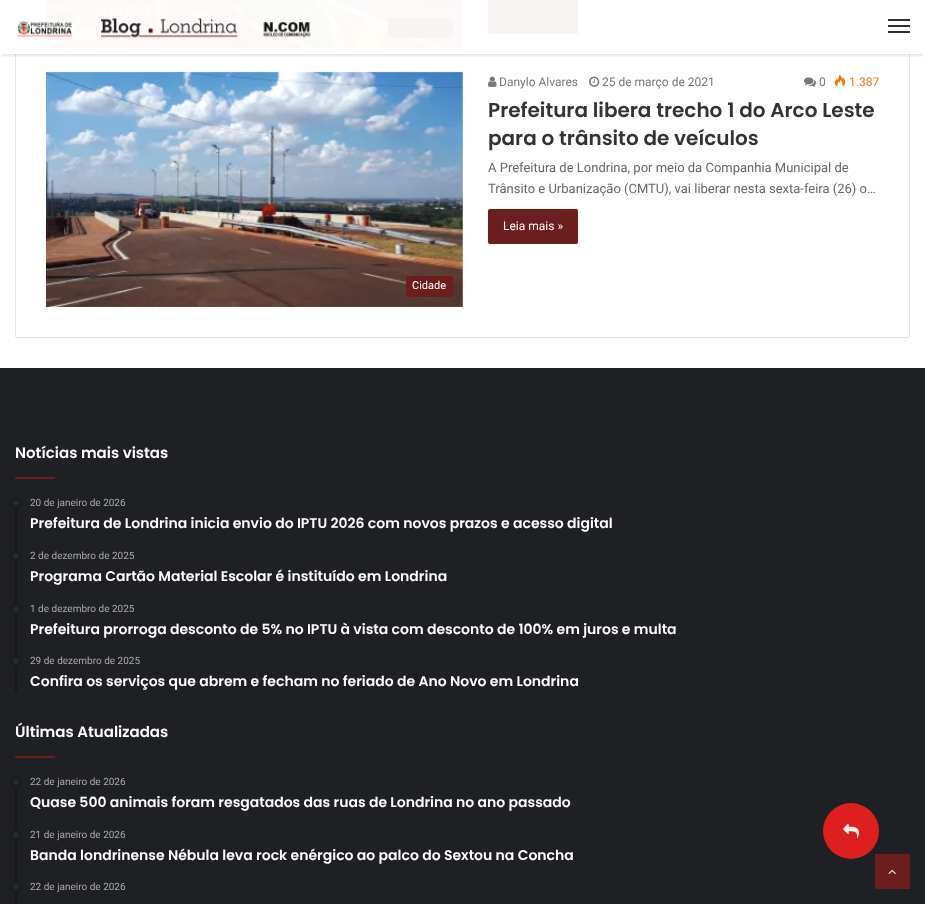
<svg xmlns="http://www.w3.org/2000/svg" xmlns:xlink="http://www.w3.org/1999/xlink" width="925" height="904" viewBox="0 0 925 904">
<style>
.cls-1{font:12px Roboto;fill:#777777}
.cls-2{font:12px Roboto;fill:#f47512}
.cls-3{font:600 20px Poppins;fill:#333333}
.cls-4{font:13px Roboto;fill:#666666}
.cls-5{font:12px Roboto;fill:#ffffff}
.cls-6{font:11px Roboto;fill:#ffffff}
.cls-7{font:600 15px Poppins;fill:#ffffff}
.cls-8{font:10px Roboto;fill:#aaaaaa}
.cls-9{font:600 14px Poppins;fill:#ffffff}
</style>
<defs>
<clipPath id="clip1"><rect x="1" y="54" width="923" height="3"/></clipPath>
</defs>
<rect width="100%" height="100%" fill="#ffffff"/>
<rect fill="#e6e6e6" x="909" y="54" width="1" height="283"/>
<rect fill="#e6e6e6" x="15" y="54" width="1" height="283"/>
<image xlink:href="image1.png" x="46" y="0" width="417" height="48"/>
<rect fill="#f8f4f4" x="388" y="18" width="65" height="20" rx="2"/>
<rect fill="#f8f4f4" x="488" y="-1" width="90" height="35" rx="2"/>
<g clip-path="url(#clip1)">
<rect fill="#000000" fill-opacity="0.1" filter="blur(1px)" x="2" y="6" width="921" height="50"/>
</g>
<image xlink:href="image0.png" x="17" y="18" width="294" height="20"/>
<rect fill="#2c2f34" x="888" y="25" width="22" height="2"/>
<rect fill="#2c2f34" x="888" y="19" width="22" height="2"/>
<rect fill="#2c2f34" x="888" y="31" width="22" height="2"/>
<rect fill="#e6e6e6" x="16" y="337" width="893" height="1"/>
<image xlink:href="image2.png" x="488" y="76" width="9" height="11"/>
<image xlink:href="image3.png" x="589" y="76" width="11" height="11"/>
<image xlink:href="image4.png" x="804" y="77" width="12" height="10"/>
<image xlink:href="image5.png" x="834" y="74" width="12" height="13"/>
<rect fill="#6c1d1d" x="488" y="209" width="90" height="35" rx="2"/>
<image xlink:href="image6.png" x="46" y="71" width="417" height="236"/>
<rect fill="#6c1d1d" x="406" y="276" width="47" height="21" rx="2"/>
<rect fill="#1f2024" x="0" y="368" width="925" height="536"/>
<rect fill="#6c1d1d" x="15" y="477" width="40" height="2"/>
<rect fill="#161619" x="15" y="497" width="2" height="195"/>
<circle fill="#27292d" stroke="#1b1c1f" stroke-width="3" cx="16" cy="503" r="4.5"/>
<circle fill="#27292d" stroke="#1b1c1f" stroke-width="3" cx="16" cy="556" r="4.5"/>
<circle fill="#27292d" stroke="#1b1c1f" stroke-width="3" cx="16" cy="609" r="4.5"/>
<circle fill="#27292d" stroke="#1b1c1f" stroke-width="3" cx="16" cy="661" r="4.5"/>
<rect fill="#6c1d1d" x="15" y="756" width="40" height="2"/>
<rect fill="#161619" x="15" y="776" width="2" height="128"/>
<circle fill="#27292d" stroke="#1b1c1f" stroke-width="3" cx="16" cy="782" r="4.5"/>
<circle fill="#27292d" stroke="#1b1c1f" stroke-width="3" cx="16" cy="835" r="4.5"/>
<circle fill="#27292d" stroke="#1b1c1f" stroke-width="3" cx="16" cy="887" r="4.5"/>
<rect fill="#6c1d1d" x="875" y="854" width="35" height="35"/>
<image xlink:href="image7.png" x="888" y="869" width="8" height="5"/>
<circle fill="#dd1f1f" cx="851" cy="831" r="28"/>
<image xlink:href="image8.png" x="843" y="823" width="16" height="16"/>
<text class="cls-1" x="499" y="86">Danylo Alvares</text>
<text class="cls-1" x="602" y="86">25 de março de 2021</text>
<text class="cls-1" x="819" y="86">0</text>
<text class="cls-2" x="849" y="86">1.387</text>
<text class="cls-3"><tspan x="488" y="117">Prefeitura libera trecho 1 do Arco Leste</tspan><tspan x="488" y="145">para o trânsito de veículos</tspan></text>
<text class="cls-4"><tspan x="488" y="172">A Prefeitura de Londrina, por meio da Companhia Municipal de</tspan><tspan x="488" y="193">Trânsito e Urbanização (CMTU), vai liberar nesta sexta-feira (26) o…</tspan></text>
<text class="cls-5" x="503" y="230">Leia mais »</text>
<text class="cls-6" x="412" y="289">Cidade</text>
<text class="cls-7" x="15" y="458">Notícias mais vistas</text>
<text class="cls-8" x="30" y="506">20 de janeiro de 2026</text>
<text class="cls-9" x="30" y="528">Prefeitura de Londrina inicia envio do IPTU 2026 com novos prazos e acesso digital</text>
<text class="cls-8" x="30" y="559">2 de dezembro de 2025</text>
<text class="cls-9" x="30" y="581">Programa Cartão Material Escolar é instituído em Londrina</text>
<text class="cls-8" x="30" y="612">1 de dezembro de 2025</text>
<text class="cls-9" x="30" y="634">Prefeitura prorroga desconto de 5% no IPTU à vista com desconto de 100% em juros e multa</text>
<text class="cls-8" x="30" y="664">29 de dezembro de 2025</text>
<text class="cls-9" x="30" y="686">Confira os serviços que abrem e fecham no feriado de Ano Novo em Londrina</text>
<text class="cls-7" x="15" y="737">Últimas Atualizadas</text>
<text class="cls-8" x="30" y="785">22 de janeiro de 2026</text>
<text class="cls-9" x="30" y="807">Quase 500 animais foram resgatados das ruas de Londrina no ano passado</text>
<text class="cls-8" x="30" y="838">21 de janeiro de 2026</text>
<text class="cls-9" x="30" y="860">Banda londrinense Nébula leva rock enérgico ao palco do Sextou na Concha</text>
<text class="cls-8" x="30" y="890">22 de janeiro de 2026</text>
</svg>
